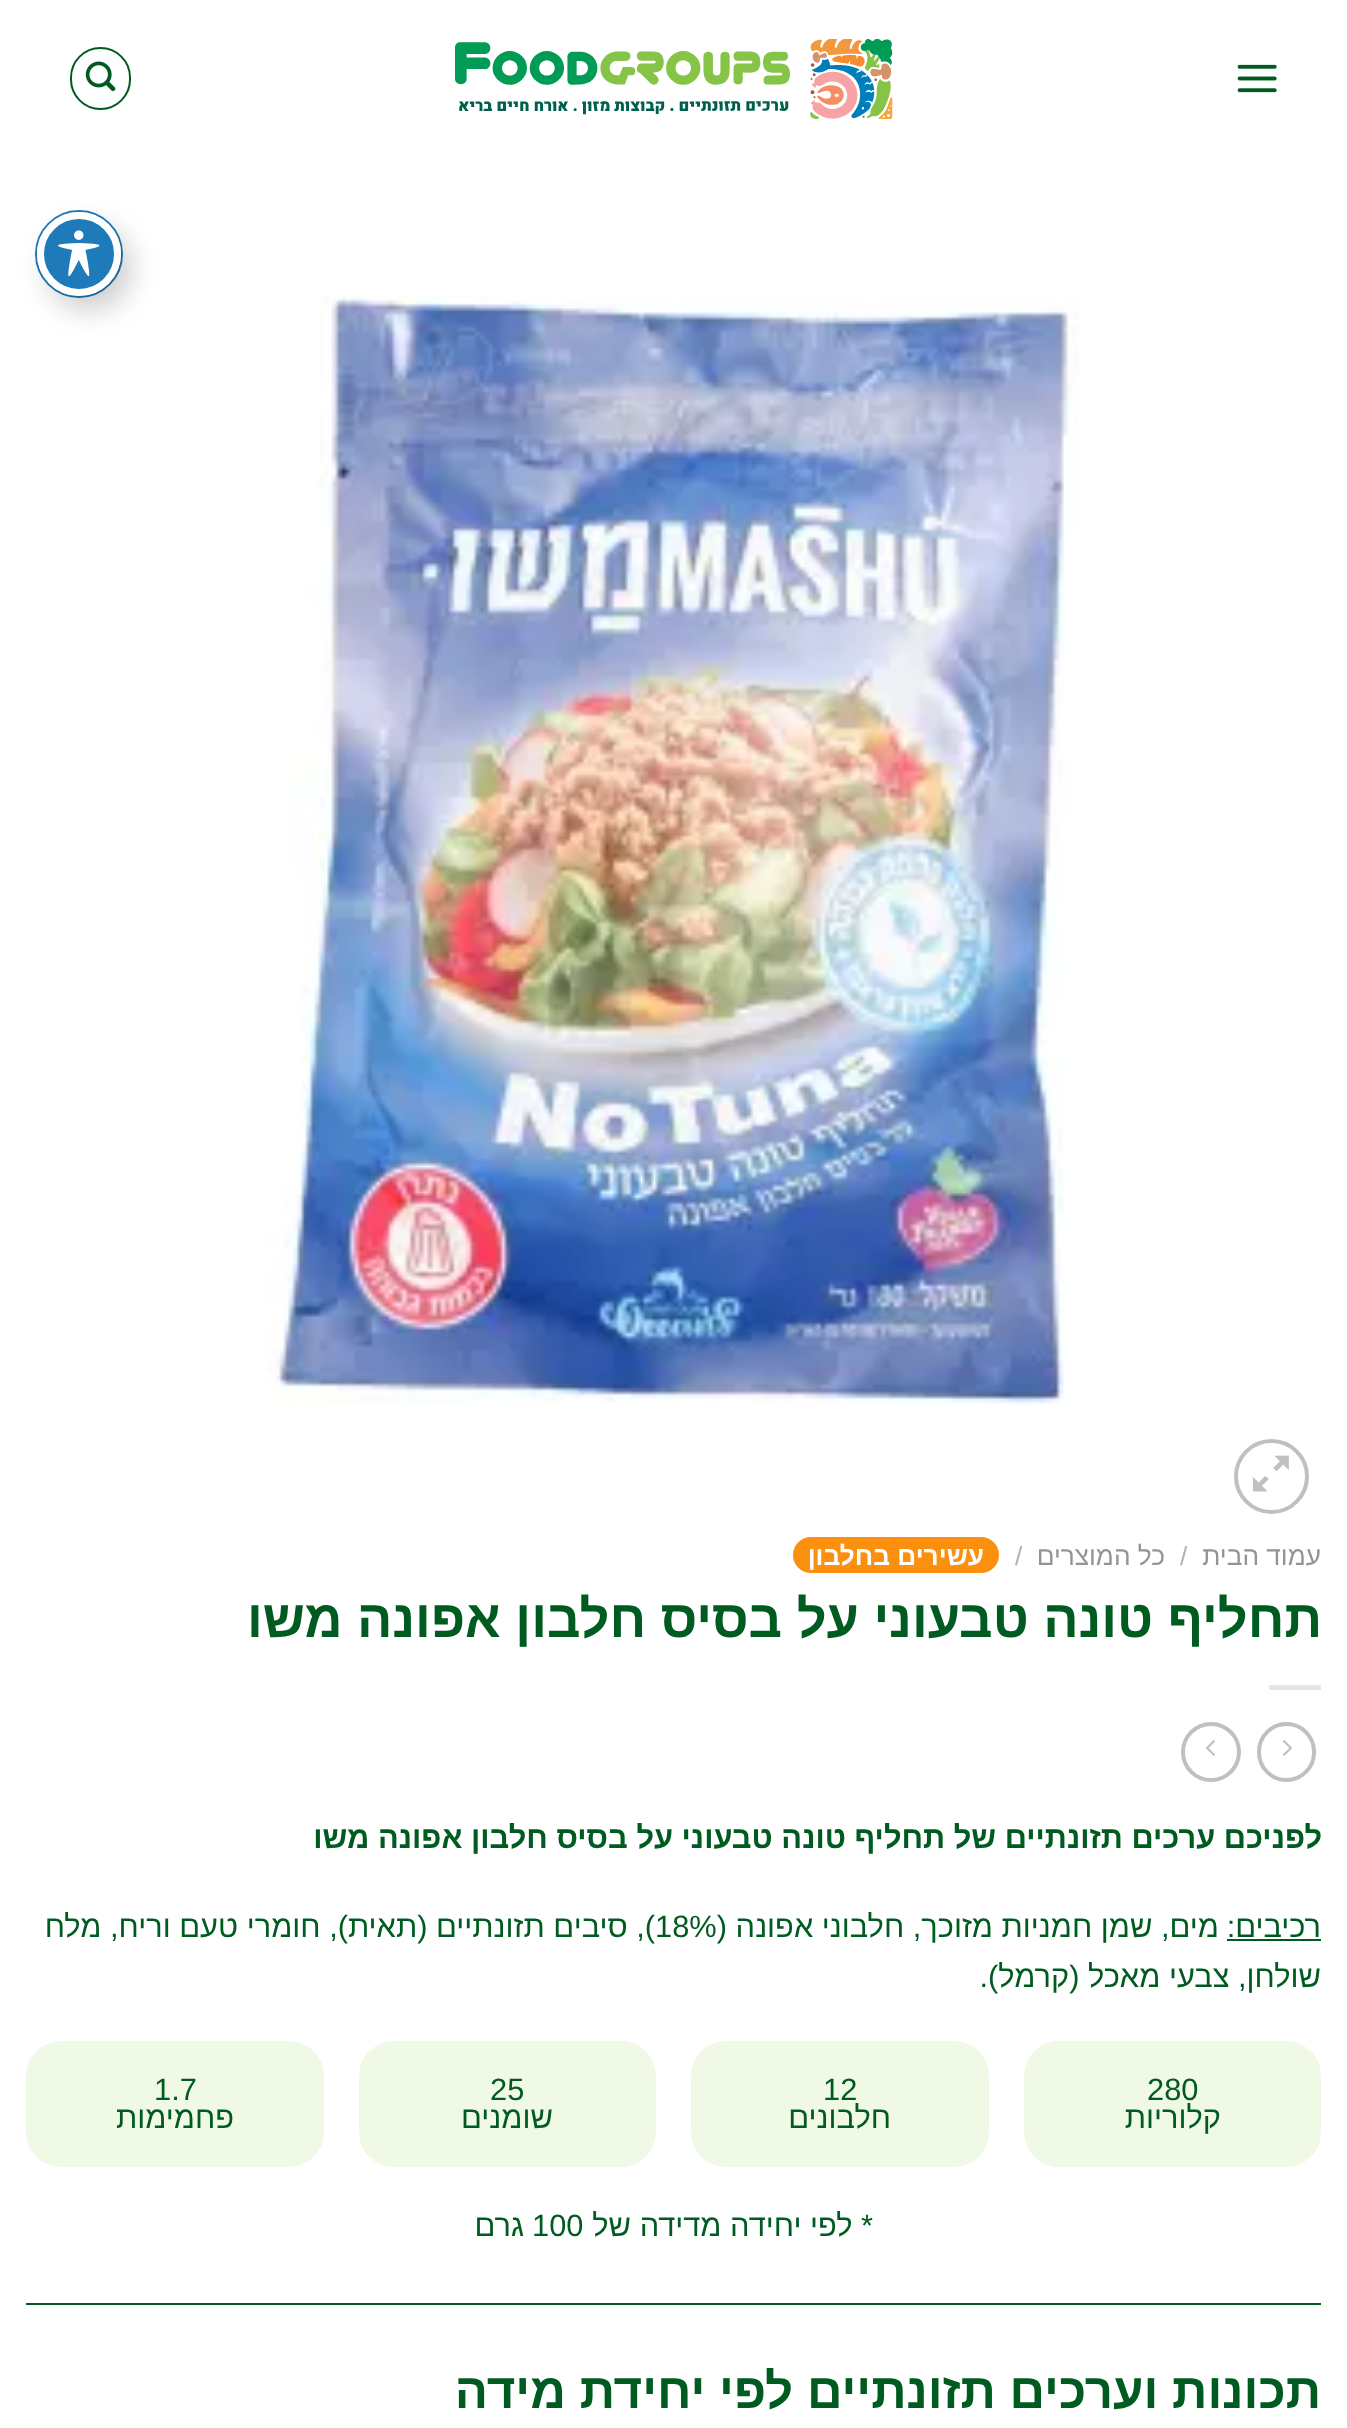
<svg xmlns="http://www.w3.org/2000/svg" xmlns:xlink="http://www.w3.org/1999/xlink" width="1347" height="2428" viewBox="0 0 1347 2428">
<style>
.cls-1{font:26.25px Liberation Sans;direction:rtl;fill:#949494}
.cls-2{font:26.25px Liberation Sans;fill:#b2b2b2}
.cls-3{font:bold 26.25px Liberation Sans;direction:rtl;fill:#ffffff}
.cls-4{font:bold 52.4px Liberation Sans;direction:rtl;fill:#005b21}
.cls-5{font:bold 30.8px Liberation Sans;direction:rtl;fill:#005b21}
.cls-6{font:30.8px Liberation Sans;direction:rtl;fill:#005b21}
.cls-7{font:30.8px Liberation Sans;fill:#005b21}
.cls-8{font:bold 49.25px Liberation Sans;direction:rtl;fill:#005b21}
</style>
<rect width="100%" height="100%" fill="#ffffff"/>
<circle fill="none" stroke="#1e7ab9" stroke-width="2" cx="79" cy="254" r="43"/>
<rect fill="#000000" fill-opacity="0.2" filter="blur(14px)" x="47" y="226" width="84" height="84" rx="42"/>
<circle fill="#1e7ab9" stroke="#ffffff" stroke-width="7" cx="79" cy="254" r="38.5"/>
<image xlink:href="image0.png" x="58" y="230" width="42" height="47"/>
<image xlink:href="image1.png" x="1237" y="64" width="40" height="29"/>
<image xlink:href="image2.png" x="455" y="39" width="438" height="80"/>
<rect fill="none" stroke="#005b21" stroke-width="2" x="71" y="48" width="59" height="61" rx="29.5"/>
<image xlink:href="image3.png" x="85" y="61" width="31" height="31"/>
<image xlink:href="image4.png" x="268" y="295" width="811" height="1110"/>
<circle fill="none" stroke="#c0c0c0" stroke-width="4" cx="1271.5" cy="1476.5" r="35.5"/>
<image xlink:href="image5.png" x="1253" y="1455" width="36" height="37"/>
<rect fill="#fb900f" x="793" y="1537" width="206" height="36" rx="18"/>
<rect fill="#e6e6e6" x="1269" y="1685" width="52" height="5"/>
<rect fill="none" stroke="#c0c0c0" stroke-width="4" x="1259" y="1724" width="55" height="56" rx="27.5"/>
<image xlink:href="image6.png" x="1282" y="1740" width="10" height="16"/>
<circle fill="none" stroke="#c0c0c0" stroke-width="4" cx="1211" cy="1752" r="28"/>
<image xlink:href="image7.png" x="1205" y="1740" width="10" height="16"/>
<rect fill="#005b21" x="1227" y="1939" width="94" height="2"/>
<rect fill="#f0f8e6" x="1024" y="2041" width="297" height="126" rx="35"/>
<rect fill="#f0f8e6" x="691" y="2041" width="298" height="126" rx="35"/>
<rect fill="#f0f8e6" x="359" y="2041" width="297" height="126" rx="35"/>
<rect fill="#f0f8e6" x="26" y="2041" width="298" height="126" rx="35"/>
<rect fill="#005b21" x="26" y="2303" width="1295" height="2"/>
<text class="cls-1" x="1321" y="1565">עמוד הבית</text>
<text class="cls-2" x="1180" y="1565">/</text>
<text class="cls-1" x="1165" y="1565">כל המוצרים</text>
<text class="cls-2" x="1015" y="1565">/</text>
<text class="cls-3" x="984" y="1565">עשירים בחלבון</text>
<text class="cls-4" x="1322" y="1637">תחליף טונה טבעוני על בסיס חלבון אפונה משו</text>
<text class="cls-5" x="1322" y="1848">לפניכם ערכים תזונתיים של תחליף טונה טבעוני על בסיס חלבון אפונה משו</text>
<text class="cls-6" x="1321" y="1937">רכיבים:</text>
<text class="cls-6" x="1219" y="1937">מים, שמן חמניות מזוכך, חלבוני אפונה (</text>
<text class="cls-7" x="655" y="1937">18%</text>
<text class="cls-6" x="655" y="1937">), סיבים תזונתיים (תאית), חומרי טעם וריח, מלח</text>
<text class="cls-6" x="1321" y="1987">שולחן, צבעי מאכל (קרמל).</text>
<text class="cls-7" x="1147" y="2100">280</text>
<text class="cls-6" x="1221" y="2128">קלוריות</text>
<text class="cls-7" x="823" y="2100">12</text>
<text class="cls-6" x="891" y="2128">חלבונים</text>
<text class="cls-7" x="490" y="2100">25</text>
<text class="cls-6" x="553" y="2128">שומנים</text>
<text class="cls-7" x="154" y="2100">1.7</text>
<text class="cls-6" x="234" y="2128">פחמימות</text>
<text class="cls-6" x="873" y="2236">* לפי יחידה מדידה של</text>
<text class="cls-7" x="532" y="2236">100</text>
<text class="cls-6" x="524" y="2236">גרם</text>
<text class="cls-8" x="1321" y="2408">תכונות וערכים תזונתיים לפי יחידת מידה</text>
</svg>
